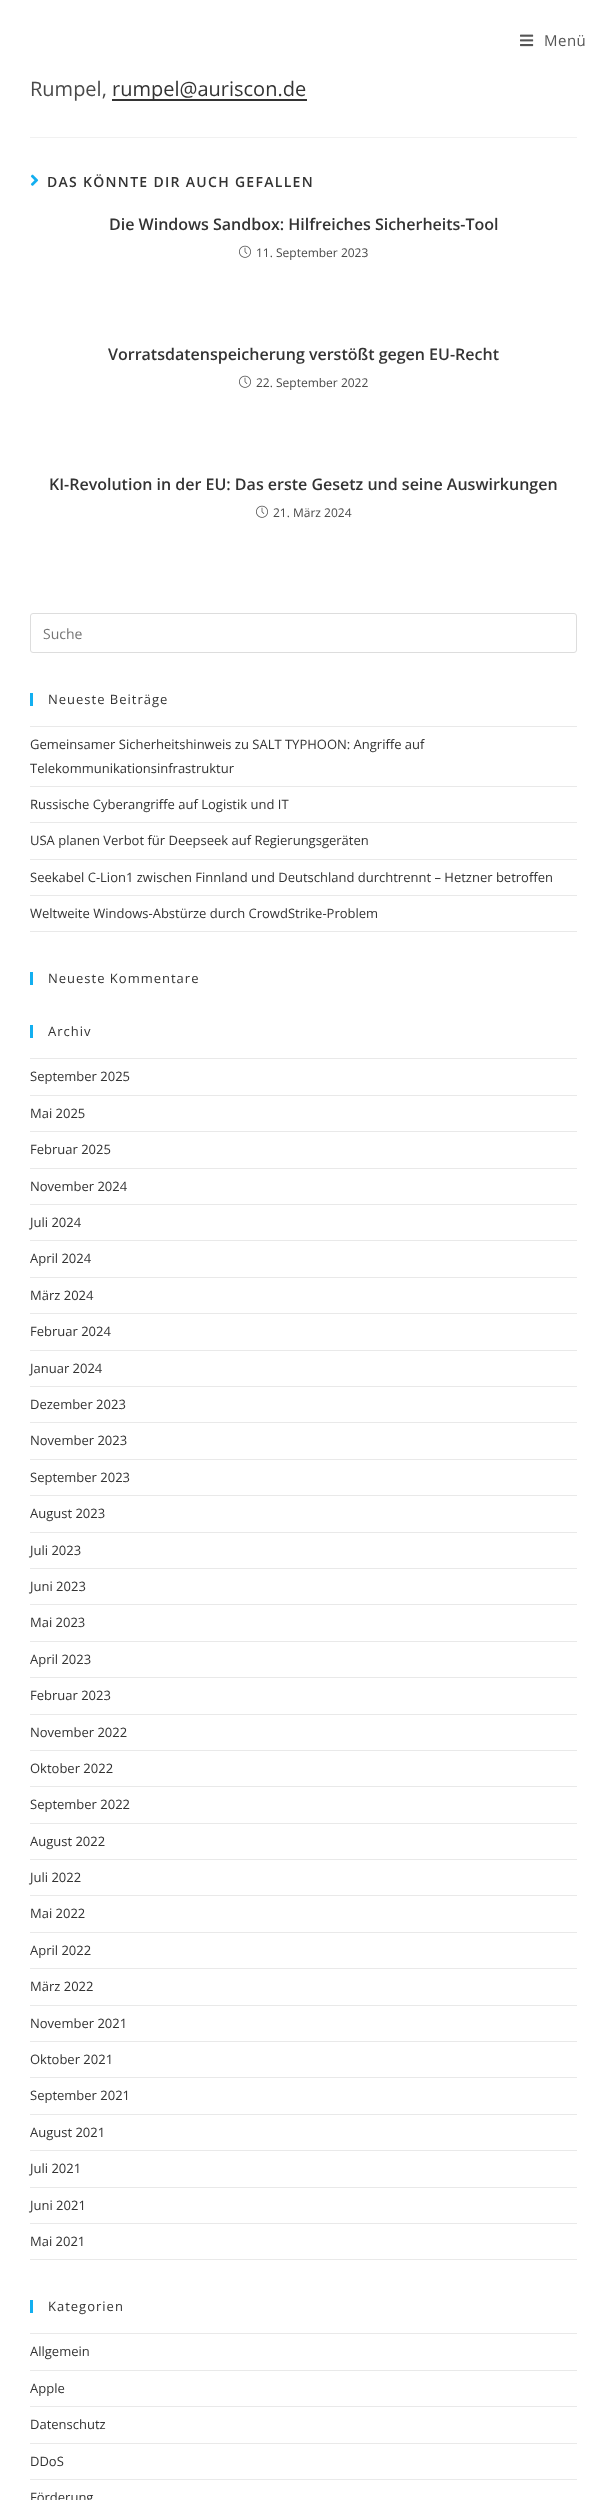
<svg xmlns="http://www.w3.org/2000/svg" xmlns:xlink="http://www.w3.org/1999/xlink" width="607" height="2500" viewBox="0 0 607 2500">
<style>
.cls-1{font:15px Open Sans;letter-spacing:0.5px;fill:#555555}
.cls-2{font:20px Open Sans;fill:#4a4a4a}
.cls-3{font:20px Open Sans;fill:#333333}
.cls-4{font:600 14px Open Sans;letter-spacing:1.3px;fill:#333333}
.cls-5{font:600 16px Open Sans;fill:#333333}
.cls-6{font:12px Open Sans;fill:#4a4a4a}
.cls-7{font:14px Open Sans;fill:#757575}
.cls-8{font:13px Open Sans;letter-spacing:1px;fill:#333333}
.cls-9{font:13px Open Sans;fill:#333333}
</style>
<rect width="100%" height="100%" fill="#ffffff"/>
<image xlink:href="image0.png" x="520" y="34" width="14" height="13"/>
<rect fill="#333333" x="112" y="99" width="195" height="2"/>
<rect fill="#f1f1f1" x="30" y="137" width="547" height="1"/>
<image xlink:href="image1.png" x="30" y="174" width="9" height="12"/>
<image xlink:href="image2.png" x="239" y="245" width="12" height="13"/>
<image xlink:href="image2.png" x="239" y="375" width="12" height="13"/>
<image xlink:href="image2.png" x="256" y="505" width="12" height="13"/>
<rect fill="none" stroke="#dddddd" x="30.5" y="613.5" width="546" height="39" rx="2.5"/>
<rect fill="#13aff0" x="30" y="693" width="3" height="13"/>
<rect fill="#e9e9e9" x="30" y="726" width="547" height="1"/>
<rect fill="#e9e9e9" x="30" y="786" width="547" height="1"/>
<rect fill="#e9e9e9" x="30" y="822" width="547" height="1"/>
<rect fill="#e9e9e9" x="30" y="859" width="547" height="1"/>
<rect fill="#e9e9e9" x="30" y="895" width="547" height="1"/>
<rect fill="#e9e9e9" x="30" y="931" width="547" height="1"/>
<rect fill="#13aff0" x="30" y="972" width="3" height="13"/>
<rect fill="#13aff0" x="30" y="1025" width="3" height="13"/>
<rect fill="#e9e9e9" x="30" y="1058" width="547" height="1"/>
<rect fill="#e9e9e9" x="30" y="1095" width="547" height="1"/>
<rect fill="#e9e9e9" x="30" y="1131" width="547" height="1"/>
<rect fill="#e9e9e9" x="30" y="1168" width="547" height="1"/>
<rect fill="#e9e9e9" x="30" y="1204" width="547" height="1"/>
<rect fill="#e9e9e9" x="30" y="1240" width="547" height="1"/>
<rect fill="#e9e9e9" x="30" y="1277" width="547" height="1"/>
<rect fill="#e9e9e9" x="30" y="1313" width="547" height="1"/>
<rect fill="#e9e9e9" x="30" y="1350" width="547" height="1"/>
<rect fill="#e9e9e9" x="30" y="1386" width="547" height="1"/>
<rect fill="#e9e9e9" x="30" y="1422" width="547" height="1"/>
<rect fill="#e9e9e9" x="30" y="1459" width="547" height="1"/>
<rect fill="#e9e9e9" x="30" y="1495" width="547" height="1"/>
<rect fill="#e9e9e9" x="30" y="1532" width="547" height="1"/>
<rect fill="#e9e9e9" x="30" y="1568" width="547" height="1"/>
<rect fill="#e9e9e9" x="30" y="1604" width="547" height="1"/>
<rect fill="#e9e9e9" x="30" y="1641" width="547" height="1"/>
<rect fill="#e9e9e9" x="30" y="1677" width="547" height="1"/>
<rect fill="#e9e9e9" x="30" y="1714" width="547" height="1"/>
<rect fill="#e9e9e9" x="30" y="1750" width="547" height="1"/>
<rect fill="#e9e9e9" x="30" y="1786" width="547" height="1"/>
<rect fill="#e9e9e9" x="30" y="1823" width="547" height="1"/>
<rect fill="#e9e9e9" x="30" y="1859" width="547" height="1"/>
<rect fill="#e9e9e9" x="30" y="1895" width="547" height="1"/>
<rect fill="#e9e9e9" x="30" y="1932" width="547" height="1"/>
<rect fill="#e9e9e9" x="30" y="1968" width="547" height="1"/>
<rect fill="#e9e9e9" x="30" y="2005" width="547" height="1"/>
<rect fill="#e9e9e9" x="30" y="2041" width="547" height="1"/>
<rect fill="#e9e9e9" x="30" y="2077" width="547" height="1"/>
<rect fill="#e9e9e9" x="30" y="2114" width="547" height="1"/>
<rect fill="#e9e9e9" x="30" y="2150" width="547" height="1"/>
<rect fill="#e9e9e9" x="30" y="2187" width="547" height="1"/>
<rect fill="#e9e9e9" x="30" y="2223" width="547" height="1"/>
<rect fill="#e9e9e9" x="30" y="2259" width="547" height="1"/>
<rect fill="#13aff0" x="30" y="2300" width="3" height="13"/>
<rect fill="#e9e9e9" x="30" y="2333" width="547" height="1"/>
<rect fill="#e9e9e9" x="30" y="2370" width="547" height="1"/>
<rect fill="#e9e9e9" x="30" y="2406" width="547" height="1"/>
<rect fill="#e9e9e9" x="30" y="2443" width="547" height="1"/>
<rect fill="#e9e9e9" x="30" y="2479" width="547" height="1"/>
<text class="cls-1" x="544" y="46">Menü</text>
<text class="cls-2" x="30" y="96">Rumpel,</text>
<text class="cls-3" x="112" y="96">rumpel@auriscon.de</text>
<text class="cls-4" x="47" y="187">DAS KÖNNTE DIR AUCH GEFALLEN</text>
<text class="cls-5" x="109" y="230">Die Windows Sandbox: Hilfreiches Sicherheits-Tool</text>
<text class="cls-6" x="256" y="257">11. September 2023</text>
<text class="cls-5" x="108" y="360">Vorratsdatenspeicherung verstößt gegen EU-Recht</text>
<text class="cls-6" x="256" y="387">22. September 2022</text>
<text class="cls-5" x="49" y="490">KI-Revolution in der EU: Das erste Gesetz und seine Auswirkungen</text>
<text class="cls-6" x="273" y="517">21. März 2024</text>
<text class="cls-7" x="43" y="639">Suche</text>
<text class="cls-8" x="48" y="704">Neueste Beiträge</text>
<text class="cls-9"><tspan x="30" y="749">Gemeinsamer Sicherheitshinweis zu SALT TYPHOON: Angriffe auf</tspan><tspan x="30" y="773">Telekommunikationsinfrastruktur</tspan></text>
<text class="cls-9" x="30" y="809">Russische Cyberangriffe auf Logistik und IT</text>
<text class="cls-9" x="30" y="845">USA planen Verbot für Deepseek auf Regierungsgeräten</text>
<text class="cls-9" x="30" y="882">Seekabel C-Lion1 zwischen Finnland und Deutschland durchtrennt – Hetzner betroffen</text>
<text class="cls-9" x="30" y="918">Weltweite Windows-Abstürze durch CrowdStrike-Problem</text>
<text class="cls-8" x="48" y="983">Neueste Kommentare</text>
<text class="cls-8" x="48" y="1036">Archiv</text>
<text class="cls-9" x="30" y="1081">September 2025</text>
<text class="cls-9" x="30" y="1118">Mai 2025</text>
<text class="cls-9" x="30" y="1154">Februar 2025</text>
<text class="cls-9" x="30" y="1191">November 2024</text>
<text class="cls-9" x="30" y="1227">Juli 2024</text>
<text class="cls-9" x="30" y="1263">April 2024</text>
<text class="cls-9" x="30" y="1300">März 2024</text>
<text class="cls-9" x="30" y="1336">Februar 2024</text>
<text class="cls-9" x="30" y="1373">Januar 2024</text>
<text class="cls-9" x="30" y="1409">Dezember 2023</text>
<text class="cls-9" x="30" y="1445">November 2023</text>
<text class="cls-9" x="30" y="1482">September 2023</text>
<text class="cls-9" x="30" y="1518">August 2023</text>
<text class="cls-9" x="30" y="1555">Juli 2023</text>
<text class="cls-9" x="30" y="1591">Juni 2023</text>
<text class="cls-9" x="30" y="1627">Mai 2023</text>
<text class="cls-9" x="30" y="1664">April 2023</text>
<text class="cls-9" x="30" y="1700">Februar 2023</text>
<text class="cls-9" x="30" y="1737">November 2022</text>
<text class="cls-9" x="30" y="1773">Oktober 2022</text>
<text class="cls-9" x="30" y="1809">September 2022</text>
<text class="cls-9" x="30" y="1846">August 2022</text>
<text class="cls-9" x="30" y="1882">Juli 2022</text>
<text class="cls-9" x="30" y="1918">Mai 2022</text>
<text class="cls-9" x="30" y="1955">April 2022</text>
<text class="cls-9" x="30" y="1991">März 2022</text>
<text class="cls-9" x="30" y="2028">November 2021</text>
<text class="cls-9" x="30" y="2064">Oktober 2021</text>
<text class="cls-9" x="30" y="2100">September 2021</text>
<text class="cls-9" x="30" y="2137">August 2021</text>
<text class="cls-9" x="30" y="2173">Juli 2021</text>
<text class="cls-9" x="30" y="2210">Juni 2021</text>
<text class="cls-9" x="30" y="2246">Mai 2021</text>
<text class="cls-8" x="48" y="2311">Kategorien</text>
<text class="cls-9" x="30" y="2356">Allgemein</text>
<text class="cls-9" x="30" y="2393">Apple</text>
<text class="cls-9" x="30" y="2429">Datenschutz</text>
<text class="cls-9" x="30" y="2466">DDoS</text>
<text class="cls-9" x="30" y="2502">Förderung</text>
</svg>
